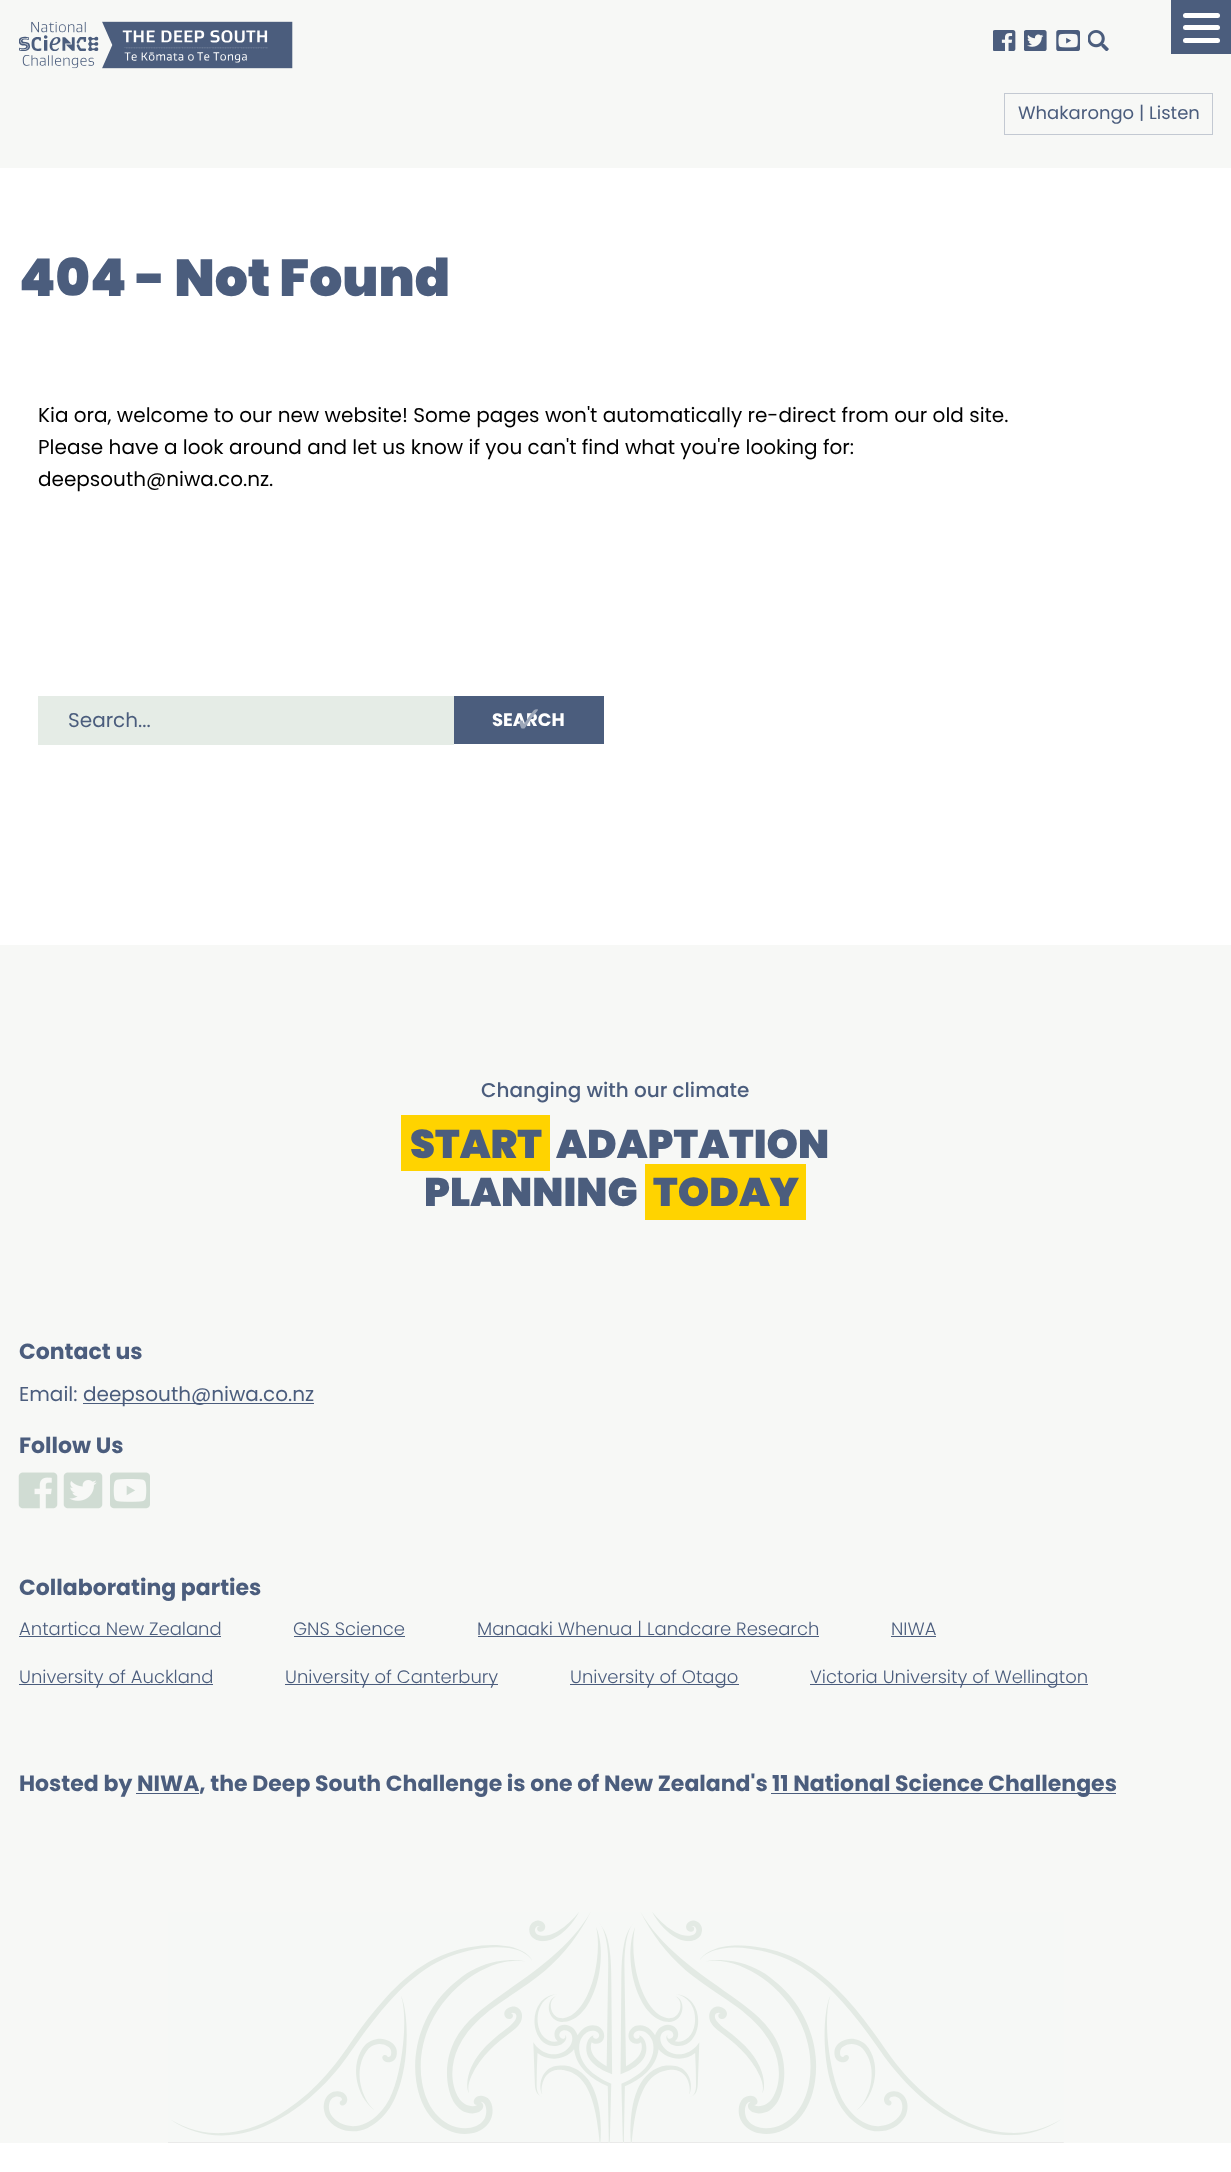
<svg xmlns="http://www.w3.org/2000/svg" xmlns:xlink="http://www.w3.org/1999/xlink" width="1231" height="2172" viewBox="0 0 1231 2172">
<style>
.cls-1{font:18px Poppins;fill:#4b5d7d}
.cls-2{font:900 52px Poppins;fill:#4b5d7d}
.cls-3{font:20px Poppins;fill:#000000}
.cls-4{font:20px Poppins;fill:#4b5d7d}
.cls-5{font:bold 18px Poppins;fill:#ffffff}
.cls-6{font:36px DejaVu Sans;fill:#9ca6b8}
.cls-7{font:500 20px Poppins;fill:#4b5d7d}
.cls-8{font:900 40px Poppins;fill:#4b5d7d}
.cls-9{font:bold 22px Poppins;fill:#4b5d7d}
.cls-10{font:300 18px Poppins;fill:#4b5d7d}
</style>
<rect width="100%" height="100%" fill="#ffffff"/>
<rect fill="#f7f8f6" x="0" y="0" width="1231" height="168"/>
<rect fill="#4b5d7d" x="1171" y="0" width="60" height="54"/>
<rect fill="#ffffff" x="1183" y="13" width="37" height="5" rx="2.5"/>
<rect fill="#ffffff" x="1183" y="25" width="37" height="5" rx="2.5"/>
<rect fill="#ffffff" x="1183" y="38" width="37" height="5" rx="2.5"/>
<image xlink:href="image0.png" x="19" y="21" width="274" height="48"/>
<image xlink:href="image1.png" x="993" y="30" width="23" height="21"/>
<image xlink:href="image2.png" x="1024" y="30" width="23" height="21"/>
<image xlink:href="image3.png" x="1056" y="30" width="24" height="21"/>
<image xlink:href="image4.png" x="1088" y="30" width="21" height="21"/>
<rect fill="none" stroke="#c3c9d2" x="1004.5" y="93.5" width="208" height="41"/>
<rect fill="#e5ece6" x="38" y="696" width="416" height="49"/>
<rect fill="#4b5d7d" x="454" y="696" width="150" height="48"/>
<rect fill="#f7f8f6" x="0" y="945" width="1231" height="1198"/>
<rect fill="#ffd300" x="401" y="1115" width="149" height="56"/>
<rect fill="#ffd300" x="645" y="1164" width="161" height="56"/>
<rect fill="#4b5d7d" x="83" y="1403" width="231" height="1"/>
<image xlink:href="image5.png" x="18" y="1472" width="40" height="37"/>
<image xlink:href="image6.png" x="63" y="1472" width="40" height="37"/>
<image xlink:href="image7.png" x="110" y="1472" width="40" height="37"/>
<rect fill="#4b5d7d" x="19" y="1636" width="202" height="1"/>
<rect fill="#4b5d7d" x="294" y="1636" width="111" height="1"/>
<rect fill="#4b5d7d" x="478" y="1636" width="341" height="1"/>
<rect fill="#4b5d7d" x="891" y="1636" width="45" height="1"/>
<rect fill="#4b5d7d" x="19" y="1684" width="194" height="1"/>
<rect fill="#4b5d7d" x="285" y="1684" width="213" height="1"/>
<rect fill="#4b5d7d" x="570" y="1684" width="169" height="1"/>
<rect fill="#4b5d7d" x="810" y="1684" width="278" height="1"/>
<rect fill="#4b5d7d" x="771" y="1793" width="345" height="1"/>
<rect fill="#4b5d7d" x="136" y="1793" width="63" height="1"/>
<image xlink:href="image8.png" x="168" y="1912" width="896" height="231"/>
<text class="cls-1" x="1018" y="119">Whakarongo | Listen</text>
<text class="cls-2" x="19" y="296">404 - Not Found</text>
<text class="cls-3"><tspan x="38" y="422">Kia ora, welcome to our new website! Some pages won't automatically re-direct from our old site.</tspan><tspan x="38" y="454">Please have a look around and let us know if you can't find what you're looking for:</tspan><tspan x="38" y="486">deepsouth@niwa.co.nz.</tspan></text>
<text class="cls-4" x="68" y="727">Search...</text>
<text class="cls-5" x="492" y="726">SEARCH</text>
<text class="cls-6" x="514" y="732">✓</text>
<text class="cls-7" x="481" y="1097">Changing with our climate</text>
<text class="cls-8" x="410" y="1158">START</text>
<text class="cls-8" x="556" y="1158">ADAPTATION</text>
<text class="cls-8" x="424" y="1206">PLANNING</text>
<text class="cls-8" x="653" y="1206">TODAY</text>
<text class="cls-9" x="19" y="1359">Contact us</text>
<text class="cls-4" x="19" y="1401">Email:</text>
<text class="cls-4" x="83" y="1401">deepsouth@niwa.co.nz</text>
<text class="cls-9" x="19" y="1453">Follow Us</text>
<text class="cls-9" x="19" y="1595">Collaborating parties</text>
<text class="cls-10" x="19" y="1635">Antartica New Zealand</text>
<text class="cls-10" x="293" y="1635">GNS Science</text>
<text class="cls-10" x="477" y="1635">Manaaki Whenua | Landcare Research</text>
<text class="cls-10" x="891" y="1635">NIWA</text>
<text class="cls-10" x="19" y="1683">University of Auckland</text>
<text class="cls-10" x="285" y="1683">University of Canterbury</text>
<text class="cls-10" x="570" y="1683">University of Otago</text>
<text class="cls-10" x="810" y="1683">Victoria University of Wellington</text>
<text class="cls-9" x="19" y="1791">Hosted by NIWA, the Deep South Challenge is one of New Zealand's</text>
<text class="cls-9" x="772" y="1791">11 National Science Challenges</text>
</svg>
